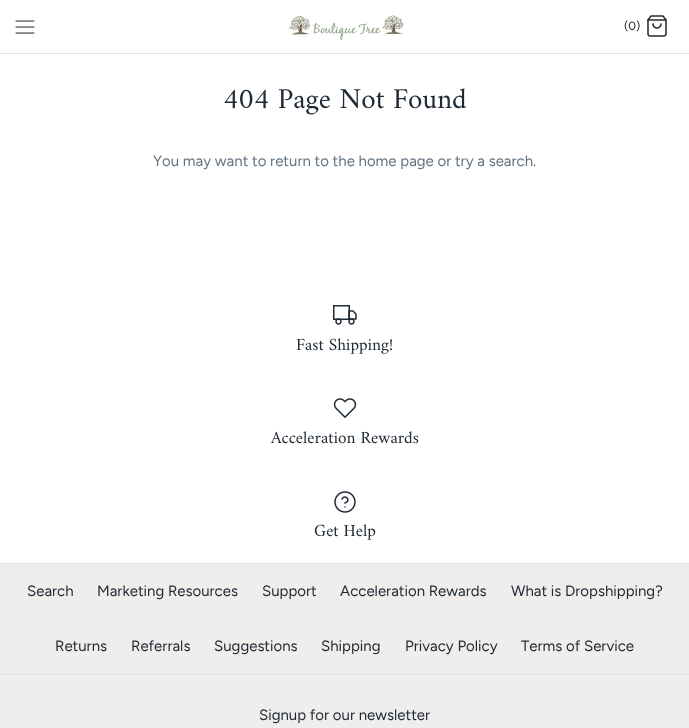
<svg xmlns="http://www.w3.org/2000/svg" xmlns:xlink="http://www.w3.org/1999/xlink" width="689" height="728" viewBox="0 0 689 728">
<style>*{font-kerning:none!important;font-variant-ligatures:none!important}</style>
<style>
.cls-1{font:12px Figtree;fill:#232323}
.cls-2{font:29px Amiri;fill:#212b36}
.cls-3{font:15px Figtree;fill:#637381}
.cls-4{font:17.25px Amiri;fill:#212b36}
.cls-5{font:15px Figtree;fill:#212b36}
</style>
<rect width="100%" height="100%" fill="#ffffff"/>
<rect fill="#e2e2e2" x="0" y="53" width="689" height="1"/>
<image xlink:href="image0.png" x="15" y="20" width="20" height="14"/>
<image xlink:href="image1.png" x="289" y="15" width="115" height="25"/>
<image xlink:href="image2.png" x="647" y="15" width="20" height="22"/>
<rect fill="#f0eeed" x="0" y="564" width="689" height="164"/>
<image xlink:href="image3.png" x="333" y="305" width="24" height="20"/>
<image xlink:href="image4.png" x="333" y="398" width="24" height="20"/>
<image xlink:href="image5.png" x="334" y="491" width="22" height="22"/>
<rect fill="#e2e2e2" x="0" y="563" width="689" height="1"/>
<rect fill="#e2e2e2" x="0" y="674" width="689" height="1"/>
<text class="cls-1" x="624" y="30">(0)</text>
<text class="cls-2" x="223" y="108">404 Page Not Found</text>
<text class="cls-3" x="153" y="166">You may want to return to the home page or try a search.</text>
<text class="cls-4" x="296" y="350">Fast Shipping!</text>
<text class="cls-4" x="271" y="443">Acceleration Rewards</text>
<text class="cls-4" x="314" y="536">Get Help</text>
<text class="cls-5" x="27" y="596">Search</text>
<text class="cls-5" x="97" y="596">Marketing Resources</text>
<text class="cls-5" x="262" y="596">Support</text>
<text class="cls-5" x="340" y="596">Acceleration Rewards</text>
<text class="cls-5" x="511" y="596">What is Dropshipping?</text>
<text class="cls-5" x="55" y="651">Returns</text>
<text class="cls-5" x="131" y="651">Referrals</text>
<text class="cls-5" x="214" y="651">Suggestions</text>
<text class="cls-5" x="321" y="651">Shipping</text>
<text class="cls-5" x="405" y="651">Privacy Policy</text>
<text class="cls-5" x="521" y="651">Terms of Service</text>
<text class="cls-5" x="259" y="720">Signup for our newsletter</text>
</svg>
